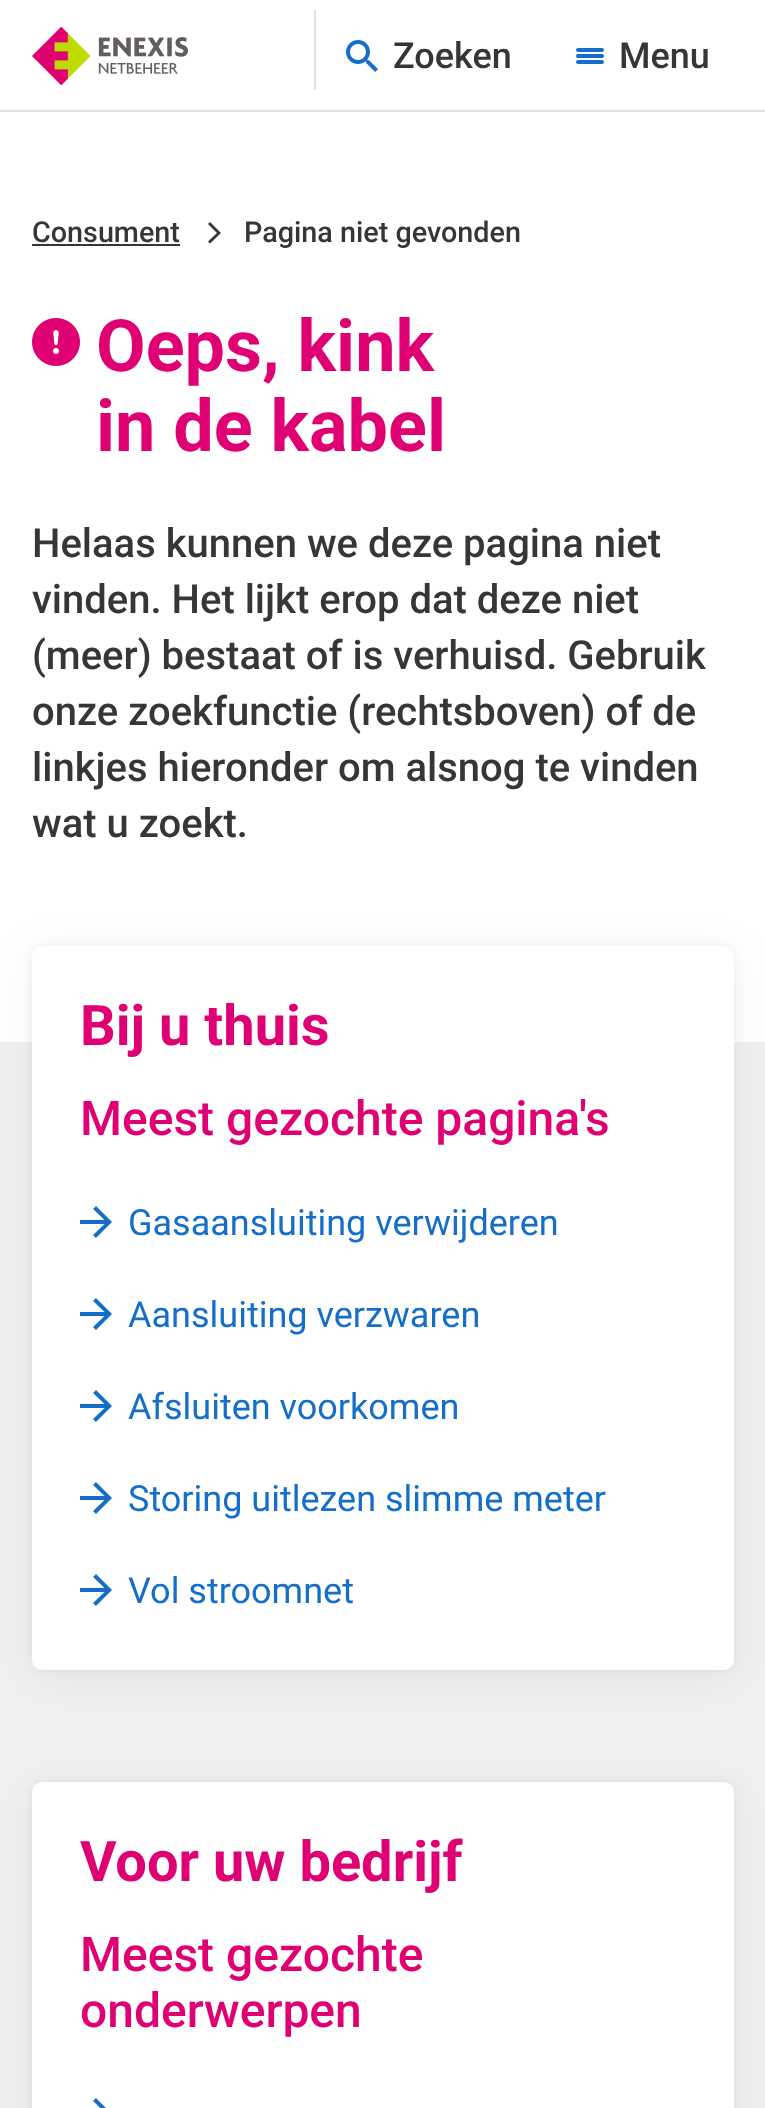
<svg xmlns="http://www.w3.org/2000/svg" xmlns:xlink="http://www.w3.org/1999/xlink" width="765" height="2108" viewBox="0 0 765 2108">
<style>
.cls-1{font:500 36px Roboto;fill:#363636}
.cls-2{font:500 28.75px Roboto;fill:#363636}
.cls-3{font:bold 72px Roboto;fill:#df0073}
.cls-4{font:500 40px Roboto;fill:#363636}
.cls-5{font:bold 56px Roboto;fill:#df0073}
.cls-6{font:500 48px Roboto;fill:#df0073}
.cls-7{font:36px Roboto;fill:#156ec7}
</style>
<rect width="100%" height="100%" fill="#ffffff"/>
<rect fill="#e0e0e0" x="0" y="110" width="765" height="2"/>
<image xlink:href="image0.png" x="32" y="26" width="156" height="60"/>
<rect fill="#e0e0e0" x="314" y="10" width="2" height="80"/>
<image xlink:href="image1.png" x="346" y="40" width="32" height="32"/>
<rect fill="#156ec7" x="576" y="48" width="28" height="4" rx="2"/>
<rect fill="#156ec7" x="576" y="54" width="28" height="4" rx="2"/>
<rect fill="#156ec7" x="576" y="60" width="28" height="4" rx="2"/>
<rect fill="#363636" x="32" y="244" width="148" height="2"/>
<path fill="#363636" d="M208 224L210 222L221 233L210 243.5L208 241.5L217 233Z"/>
<image xlink:href="image2.png" x="32" y="318" width="48" height="48"/>
<rect fill="#f0f0f0" x="0" y="1042" width="765" height="1066"/>
<rect fill="#000000" fill-opacity="0.05" filter="blur(24px)" x="32" y="954" width="702" height="724" rx="10"/>
<rect fill="#000000" fill-opacity="0.05" filter="blur(4px)" x="32" y="946" width="702" height="724" rx="10"/>
<rect fill="#ffffff" x="32" y="946" width="702" height="724" rx="10"/>
<path fill="#156ec7" d="M96 1206L93 1209L104.5 1220H80V1224H104.5L93 1235L96 1238L112 1222Z"/>
<path fill="#156ec7" d="M96 1298L93 1301L104.5 1312H80V1316H104.5L93 1327L96 1330L112 1314Z"/>
<path fill="#156ec7" d="M96 1390L93 1393L104.5 1404H80V1408H104.5L93 1419L96 1422L112 1406Z"/>
<path fill="#156ec7" d="M96 1482L93 1485L104.5 1496H80V1500H104.5L93 1511L96 1514L112 1498Z"/>
<path fill="#156ec7" d="M96 1574L93 1577L104.5 1588H80V1592H104.5L93 1603L96 1606L112 1590Z"/>
<rect fill="#000000" fill-opacity="0.05" filter="blur(24px)" x="32" y="1790" width="702" height="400" rx="10"/>
<rect fill="#000000" fill-opacity="0.05" filter="blur(4px)" x="32" y="1782" width="702" height="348" rx="10"/>
<rect fill="#ffffff" x="32" y="1782" width="702" height="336" rx="10"/>
<path fill="#156ec7" d="M96 2098L93 2101L104.5 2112H80V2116H104.5L93 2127L96 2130L112 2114Z"/>
<text class="cls-1" x="393" y="68">Zoeken</text>
<text class="cls-1" x="619" y="68">Menu</text>
<text class="cls-2" x="32" y="242">Consument</text>
<text class="cls-2" x="244" y="242">Pagina niet gevonden</text>
<text class="cls-3"><tspan x="96" y="371">Oeps, kink</tspan><tspan x="96" y="451">in de kabel</tspan></text>
<text class="cls-4"><tspan x="32" y="557">Helaas kunnen we deze pagina niet</tspan><tspan x="32" y="613">vinden. Het lijkt erop dat deze niet</tspan><tspan x="32" y="669">(meer) bestaat of is verhuisd. Gebruik</tspan><tspan x="32" y="725">onze zoekfunctie (rechtsboven) of de</tspan><tspan x="32" y="781">linkjes hieronder om alsnog te vinden</tspan><tspan x="32" y="837">wat u zoekt.</tspan></text>
<text class="cls-5" x="80" y="1045">Bij u thuis</text>
<text class="cls-6" x="80" y="1135">Meest gezochte pagina's</text>
<text class="cls-7" x="128" y="1235">Gasaansluiting verwijderen</text>
<text class="cls-7" x="128" y="1327">Aansluiting verzwaren</text>
<text class="cls-7" x="128" y="1419">Afsluiten voorkomen</text>
<text class="cls-7" x="128" y="1511">Storing uitlezen slimme meter</text>
<text class="cls-7" x="128" y="1603">Vol stroomnet</text>
<text class="cls-5" x="80" y="1881">Voor uw bedrijf</text>
<text class="cls-6"><tspan x="80" y="1971">Meest gezochte</tspan><tspan x="80" y="2027">onderwerpen</tspan></text>
</svg>
